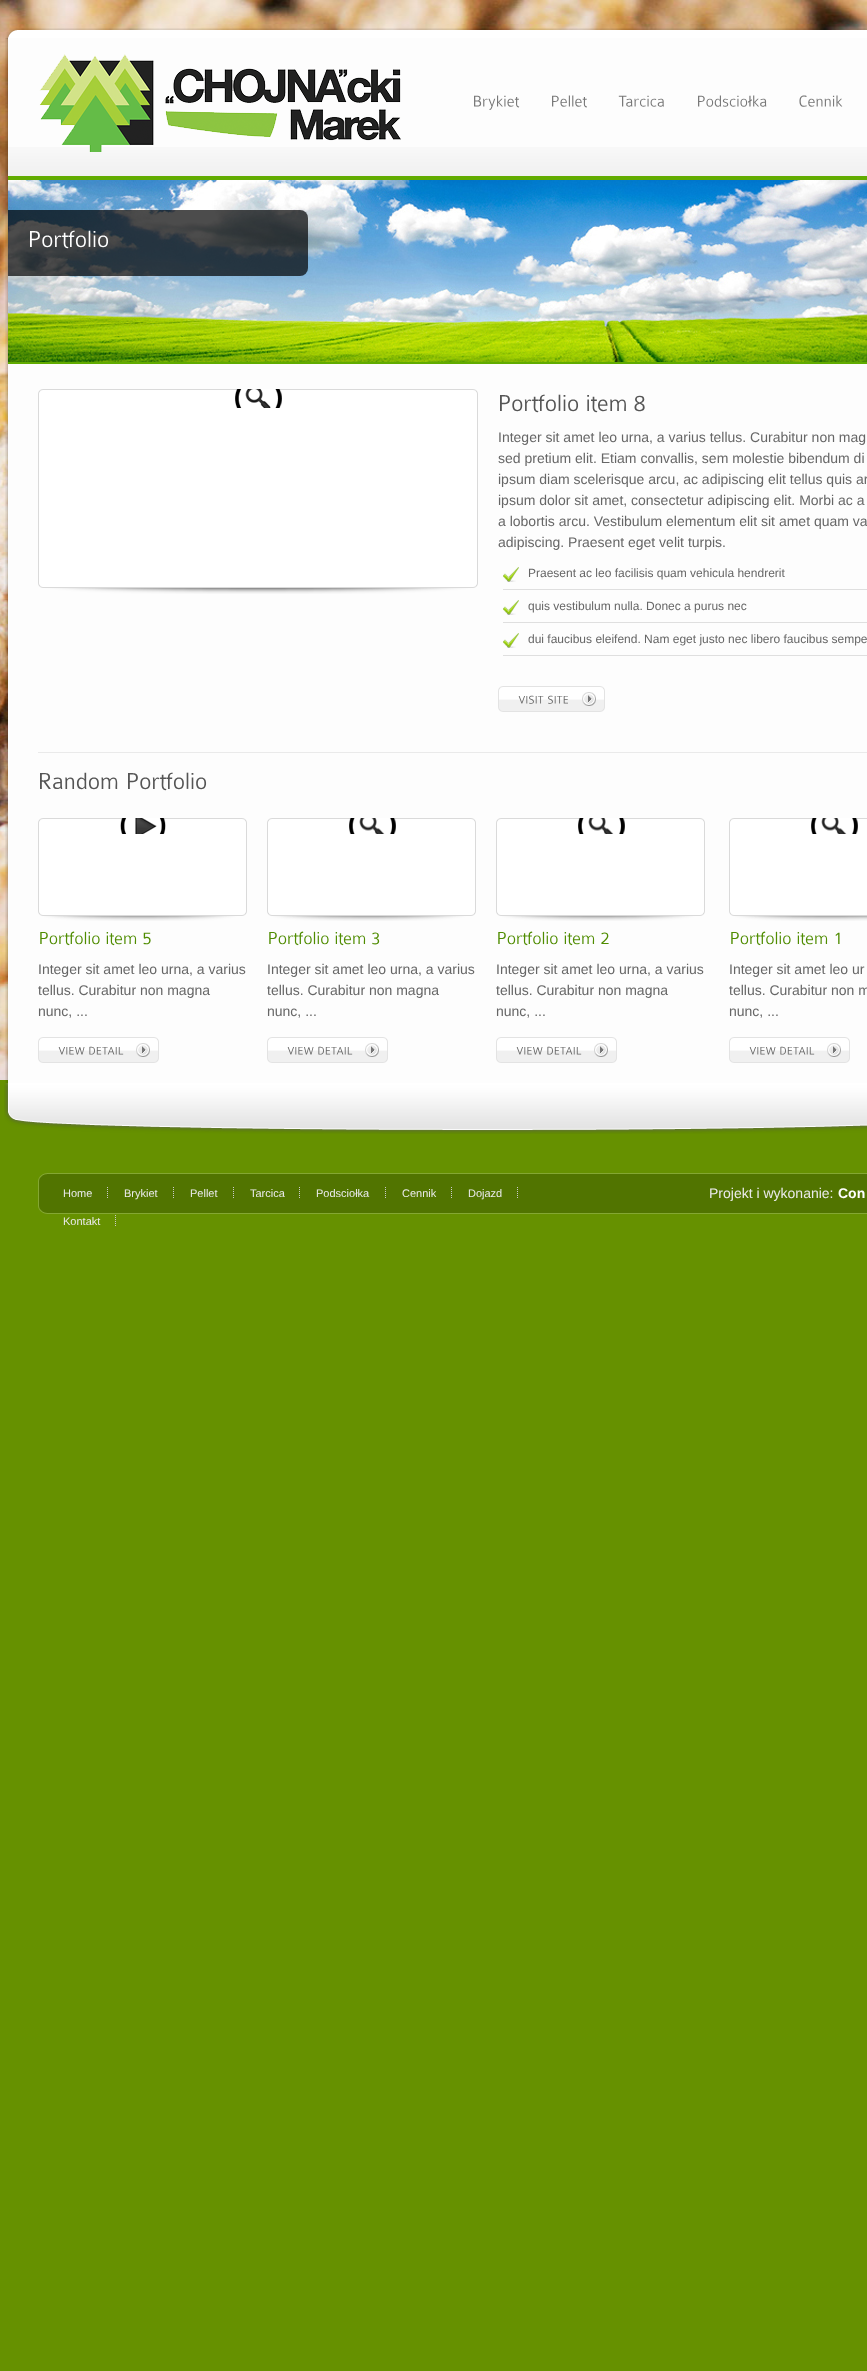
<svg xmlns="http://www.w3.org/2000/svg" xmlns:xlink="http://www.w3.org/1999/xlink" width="867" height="2371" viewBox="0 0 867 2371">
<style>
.cls-1{font:14px Liberation Sans;fill:#666666}
.cls-2{font:12px Liberation Sans;fill:#666666}
.cls-3{font:11px Liberation Sans;fill:#eaeaea}
.cls-4{font:14px Liberation Sans;fill:#eaeaea}
.cls-5{font:bold 14px Liberation Sans;fill:#ffffff}
</style>
<rect width="100%" height="100%" fill="#669100"/>
<image xlink:href="image0.png" x="0" y="0" width="867" height="1080"/>
<image xlink:href="image1.png" x="5" y="28" width="862" height="11"/>
<image xlink:href="image2.png" x="5" y="38" width="862" height="1045"/>
<image xlink:href="image3.png" x="8" y="147" width="859" height="29"/>
<image xlink:href="image4.png" x="39" y="54" width="362" height="98"/>
<image xlink:href="image5.png" x="474" y="95" width="46" height="15"/>
<image xlink:href="image6.png" x="552" y="95" width="35" height="13"/>
<image xlink:href="image7.png" x="618" y="95" width="46" height="12"/>
<image xlink:href="image8.png" x="698" y="95" width="69" height="12"/>
<image xlink:href="image9.png" x="799" y="95" width="44" height="12"/>
<rect fill="#61ab00" x="8" y="176" width="859" height="188"/>
<image xlink:href="image10.png" x="8" y="180" width="859" height="182"/>
<image xlink:href="image11.png" x="8" y="210" width="300" height="66"/>
<image xlink:href="image12.png" x="30" y="230" width="79" height="19"/>
<image xlink:href="image13.png" x="38" y="389" width="440" height="205"/>
<image xlink:href="image14.png" x="235" y="389" width="47" height="19"/>
<image xlink:href="image15.png" x="500" y="394" width="79" height="19"/>
<image xlink:href="image16.png" x="587" y="395" width="39" height="18"/>
<image xlink:href="image17.png" x="634" y="395" width="11" height="17"/>
<image xlink:href="image18.png" x="503" y="567" width="16" height="15"/>
<rect fill="#dfdfdf" x="503" y="589" width="364" height="1"/>
<image xlink:href="image18.png" x="503" y="600" width="16" height="15"/>
<rect fill="#dfdfdf" x="503" y="622" width="364" height="1"/>
<image xlink:href="image18.png" x="503" y="633" width="16" height="15"/>
<rect fill="#dfdfdf" x="503" y="655" width="364" height="1"/>
<image xlink:href="image19.png" x="598" y="686" width="7" height="26"/>
<image xlink:href="image20.png" x="498" y="686" width="100" height="26"/>
<image xlink:href="image21.png" x="518" y="695" width="26" height="9"/>
<image xlink:href="image22.png" x="548" y="695" width="20" height="9"/>
<image xlink:href="image23.png" x="582" y="692" width="14" height="14"/>
<rect fill="#eaeaea" x="38" y="752" width="829" height="1"/>
<image xlink:href="image24.png" x="40" y="772" width="78" height="18"/>
<image xlink:href="image15.png" x="128" y="772" width="79" height="19"/>
<image xlink:href="image25.png" x="38" y="818" width="209" height="103"/>
<image xlink:href="image26.png" x="120" y="818" width="46" height="16"/>
<image xlink:href="image27.png" x="40" y="931" width="60" height="15"/>
<image xlink:href="image28.png" x="106" y="932" width="31" height="14"/>
<image xlink:href="image29.png" x="143" y="932" width="8" height="13"/>
<image xlink:href="image19.png" x="152" y="1037" width="7" height="26"/>
<image xlink:href="image30.png" x="38" y="1037" width="114" height="26"/>
<image xlink:href="image31.png" x="58" y="1047" width="27" height="8"/>
<image xlink:href="image32.png" x="89" y="1046" width="35" height="9"/>
<image xlink:href="image23.png" x="136" y="1043" width="14" height="14"/>
<image xlink:href="image25.png" x="267" y="818" width="209" height="103"/>
<image xlink:href="image33.png" x="349" y="818" width="47" height="16"/>
<image xlink:href="image27.png" x="269" y="931" width="60" height="15"/>
<image xlink:href="image28.png" x="335" y="932" width="31" height="14"/>
<image xlink:href="image34.png" x="372" y="932" width="8" height="13"/>
<image xlink:href="image19.png" x="381" y="1037" width="7" height="26"/>
<image xlink:href="image30.png" x="267" y="1037" width="114" height="26"/>
<image xlink:href="image31.png" x="287" y="1047" width="27" height="8"/>
<image xlink:href="image32.png" x="318" y="1046" width="35" height="9"/>
<image xlink:href="image23.png" x="365" y="1043" width="14" height="14"/>
<image xlink:href="image25.png" x="496" y="818" width="209" height="103"/>
<image xlink:href="image33.png" x="578" y="818" width="47" height="16"/>
<image xlink:href="image27.png" x="498" y="931" width="60" height="15"/>
<image xlink:href="image28.png" x="564" y="932" width="31" height="14"/>
<image xlink:href="image35.png" x="601" y="932" width="8" height="12"/>
<image xlink:href="image19.png" x="610" y="1037" width="7" height="26"/>
<image xlink:href="image30.png" x="496" y="1037" width="114" height="26"/>
<image xlink:href="image31.png" x="516" y="1047" width="27" height="8"/>
<image xlink:href="image32.png" x="547" y="1046" width="35" height="9"/>
<image xlink:href="image23.png" x="594" y="1043" width="14" height="14"/>
<image xlink:href="image36.png" x="729" y="818" width="138" height="103"/>
<image xlink:href="image33.png" x="811" y="818" width="47" height="16"/>
<image xlink:href="image27.png" x="731" y="931" width="60" height="15"/>
<image xlink:href="image28.png" x="797" y="932" width="31" height="14"/>
<image xlink:href="image37.png" x="835" y="932" width="5" height="12"/>
<image xlink:href="image19.png" x="843" y="1037" width="7" height="26"/>
<image xlink:href="image30.png" x="729" y="1037" width="114" height="26"/>
<image xlink:href="image31.png" x="749" y="1047" width="27" height="8"/>
<image xlink:href="image32.png" x="780" y="1046" width="35" height="9"/>
<image xlink:href="image23.png" x="827" y="1043" width="14" height="14"/>
<image xlink:href="image38.png" x="4" y="1083" width="863" height="51"/>
<image xlink:href="image39.png" x="38" y="1173" width="829" height="41"/>
<path fill="none" stroke="#cacaca" stroke-dasharray="1 1" d="M107.5 1187V1199"/>
<path fill="none" stroke="#cacaca" stroke-dasharray="1 1" d="M173.5 1187V1199"/>
<path fill="none" stroke="#cacaca" stroke-dasharray="1 1" d="M233.5 1187V1199"/>
<path fill="none" stroke="#cacaca" stroke-dasharray="1 1" d="M299.5 1187V1199"/>
<path fill="none" stroke="#cacaca" stroke-dasharray="1 1" d="M385.5 1187V1199"/>
<path fill="none" stroke="#cacaca" stroke-dasharray="1 1" d="M451.5 1187V1199"/>
<path fill="none" stroke="#cacaca" stroke-dasharray="1 1" d="M517.5 1187V1199"/>
<path fill="none" stroke="#cacaca" stroke-dasharray="1 1" d="M115.5 1215V1227"/>
<text class="cls-1"><tspan x="498" y="442">Integer sit amet leo urna, a varius tellus. Curabitur non mag</tspan><tspan x="498" y="463">sed pretium elit. Etiam convallis, sem molestie bibendum di</tspan><tspan x="498" y="484">ipsum diam scelerisque arcu, ac adipiscing elit tellus quis ar</tspan><tspan x="498" y="505">ipsum dolor sit amet, consectetur adipiscing elit. Morbi ac a</tspan><tspan x="498" y="526">a lobortis arcu. Vestibulum elementum elit sit amet quam va</tspan><tspan x="498" y="547">adipiscing. Praesent eget velit turpis.</tspan></text>
<text class="cls-2" x="528" y="577">Praesent ac leo facilisis quam vehicula hendrerit</text>
<text class="cls-2" x="528" y="610">quis vestibulum nulla. Donec a purus nec</text>
<text class="cls-2" x="528" y="643">dui faucibus eleifend. Nam eget justo nec libero faucibus sempe</text>
<text class="cls-1"><tspan x="38" y="974">Integer sit amet leo urna, a varius</tspan><tspan x="38" y="995">tellus. Curabitur non magna</tspan><tspan x="38" y="1016">nunc, ...</tspan></text>
<text class="cls-1"><tspan x="267" y="974">Integer sit amet leo urna, a varius</tspan><tspan x="267" y="995">tellus. Curabitur non magna</tspan><tspan x="267" y="1016">nunc, ...</tspan></text>
<text class="cls-1"><tspan x="496" y="974">Integer sit amet leo urna, a varius</tspan><tspan x="496" y="995">tellus. Curabitur non magna</tspan><tspan x="496" y="1016">nunc, ...</tspan></text>
<text class="cls-1"><tspan x="729" y="974">Integer sit amet leo ur</tspan><tspan x="729" y="995">tellus. Curabitur non m</tspan><tspan x="729" y="1016">nunc, ...</tspan></text>
<text class="cls-3" x="63" y="1197">Home</text>
<text class="cls-3" x="124" y="1197">Brykiet</text>
<text class="cls-3" x="190" y="1197">Pellet</text>
<text class="cls-3" x="250" y="1197">Tarcica</text>
<text class="cls-3" x="316" y="1197">Podsciołka</text>
<text class="cls-3" x="402" y="1197">Cennik</text>
<text class="cls-3" x="468" y="1197">Dojazd</text>
<text class="cls-3" x="63" y="1225">Kontakt</text>
<text class="cls-4" x="709" y="1198">Projekt i wykonanie:</text>
<text class="cls-5" x="838" y="1198">Con</text>
</svg>
